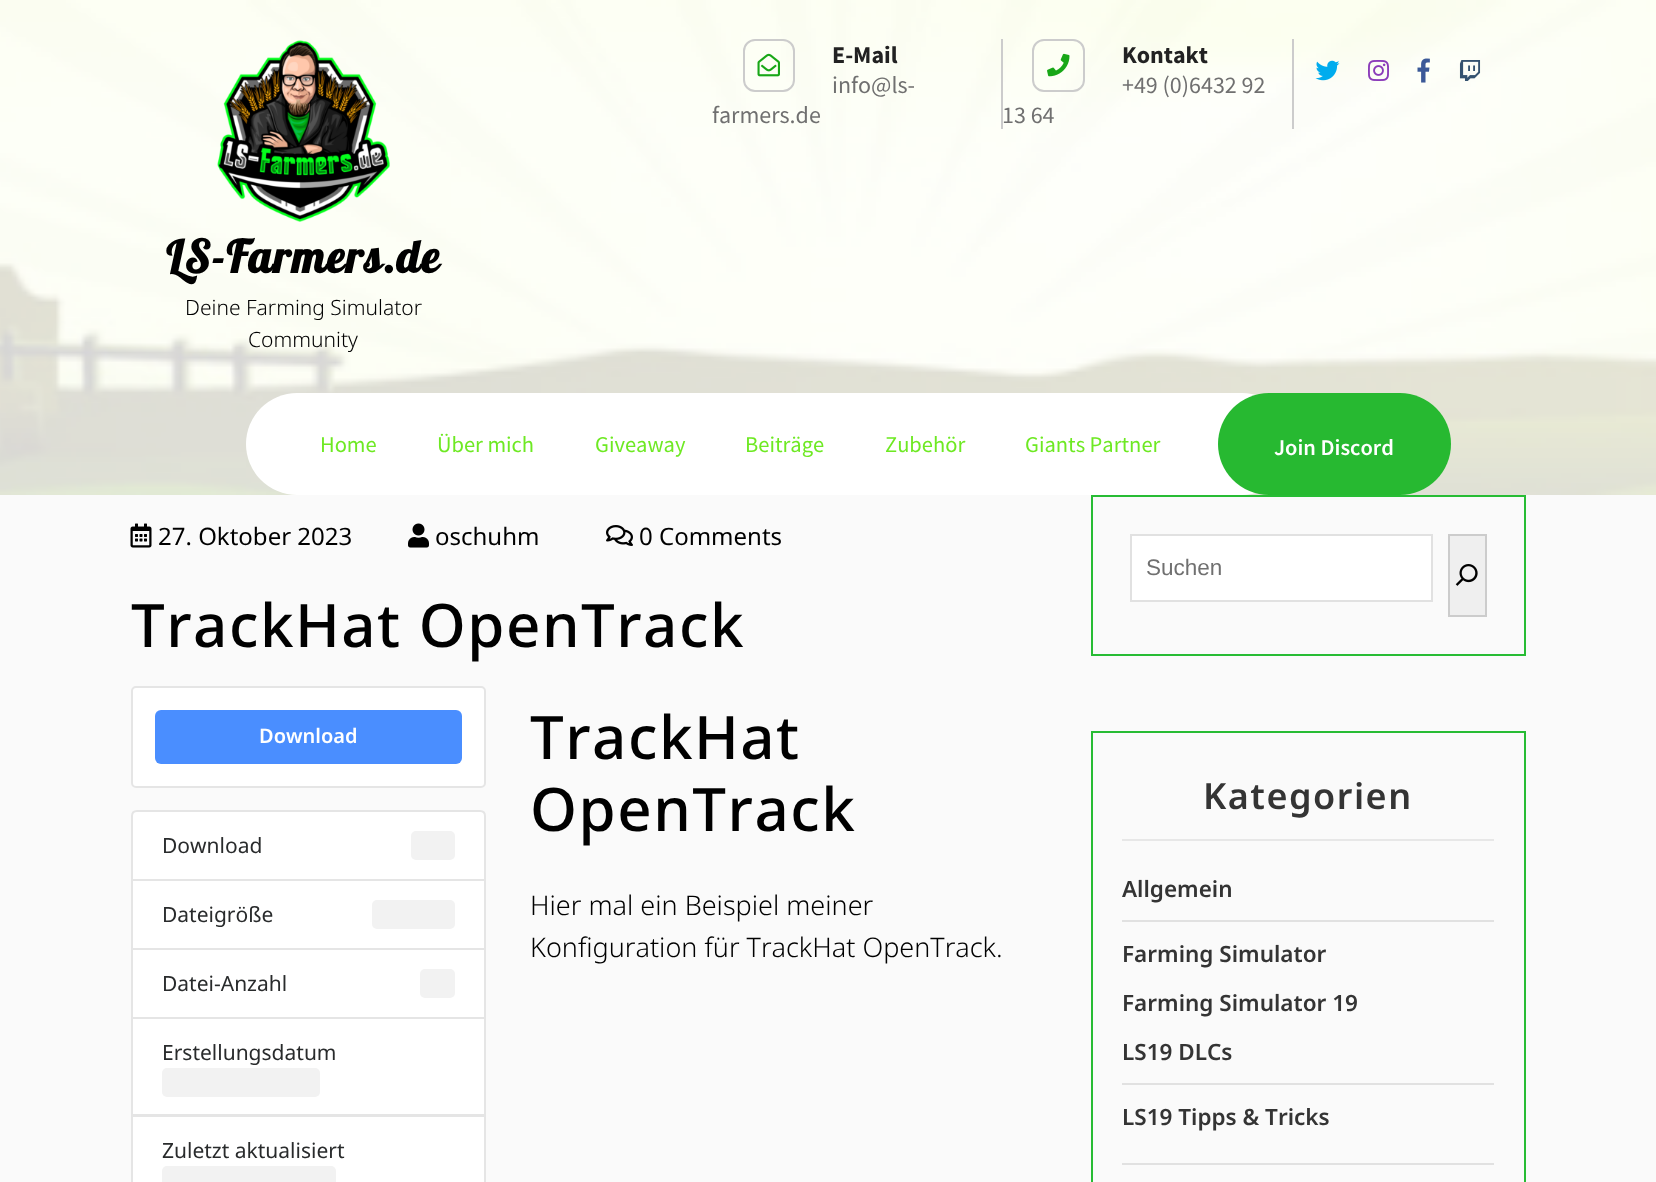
<svg xmlns="http://www.w3.org/2000/svg" xmlns:xlink="http://www.w3.org/1999/xlink" width="1656" height="1182" viewBox="0 0 1656 1182">
<style>*{font-kerning:none!important;font-variant-ligatures:none!important}</style>
<style>
.cls-1{font:bold 24px Source Sans Pro;fill:#222222}
.cls-2{font:24px Source Sans Pro;fill:#707070}
.cls-3{font:bold 45px Lobster;letter-spacing:1.5px;fill:#000000}
.cls-4{font:300 21px Noto Sans;fill:#000000}
.cls-5{font:22.5px Source Sans Pro;fill:#6ee923}
.cls-6{font:600 22.5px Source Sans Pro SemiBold;fill:#ffffff}
.cls-7{font:24px Noto Sans;fill:#000000}
.cls-8{font:500 60px Noto Sans;letter-spacing:1.5px;fill:#000000}
.cls-9{font:600 20px Noto Sans;fill:#ffffff}
.cls-10{font:21px Noto Sans;fill:#292b2c}
.cls-11{font:300 27px Noto Sans;fill:#000000}
.cls-12{font:22.5px Liberation Sans;fill:#707070}
.cls-13{font:600 36px Noto Sans;letter-spacing:1.5px;fill:#343434}
.cls-14{font:600 22.5px Noto Sans;fill:#343434}
</style>
<rect width="100%" height="100%" fill="#fafafa"/>
<image xlink:href="image0.png" x="0" y="0" width="1656" height="495"/>
<rect fill="#cccccc" x="1001" y="39" width="2" height="90"/>
<rect fill="none" stroke="#cccccc" stroke-width="2" x="744" y="40" width="50" height="51" rx="11"/>
<image xlink:href="image1.png" x="757" y="53" width="23" height="24"/>
<rect fill="#cccccc" x="1292" y="39" width="2" height="90"/>
<rect fill="none" stroke="#cccccc" stroke-width="2" x="1033" y="40" width="51" height="51" rx="11"/>
<image xlink:href="image2.png" x="1047" y="53" width="23" height="24"/>
<image xlink:href="image3.png" x="1315" y="60" width="25" height="21"/>
<image xlink:href="image4.png" x="1368" y="60" width="21" height="21"/>
<image xlink:href="image5.png" x="1417" y="58" width="13" height="25"/>
<image xlink:href="image6.png" x="1459" y="60" width="22" height="21"/>
<image xlink:href="image7.png" x="217" y="40" width="173" height="182"/>
<rect fill="#ffffff" x="246" y="393" width="1047" height="102" rx="51"/>
<rect fill="#27b931" x="1218" y="393" width="233" height="102" rx="51"/>
<image xlink:href="image8.png" x="130" y="523" width="22" height="25"/>
<image xlink:href="image9.png" x="408" y="523" width="21" height="25"/>
<image xlink:href="image10.png" x="606" y="525" width="27" height="21"/>
<rect fill="#ffffff" stroke="#e5e5e5" stroke-width="2" x="132" y="687" width="353" height="100" rx="4"/>
<rect fill="#4a8eff" x="155" y="710" width="307" height="54" rx="6"/>
<path fill="#ffffff" stroke="#e5e5e5" stroke-width="2" d="M137 811H480C483 811 485 813 485 816V880H132V816C132 813 134 811 137 811Z"/>
<rect fill="#f2f2f2" x="411" y="831" width="44" height="29" rx="5"/>
<rect fill="#ffffff" stroke="#e5e5e5" stroke-width="2" x="132" y="880" width="353" height="69"/>
<rect fill="#f2f2f2" x="372" y="900" width="83" height="29" rx="5"/>
<rect fill="#ffffff" stroke="#e5e5e5" stroke-width="2" x="132" y="949" width="353" height="69"/>
<rect fill="#f2f2f2" x="420" y="969" width="35" height="29" rx="5"/>
<rect fill="#ffffff" stroke="#e5e5e5" stroke-width="2" x="132" y="1018" width="353" height="97"/>
<rect fill="#f2f2f2" x="162" y="1068" width="158" height="29" rx="5"/>
<rect fill="#ffffff" stroke="#e5e5e5" stroke-width="2" x="132" y="1116" width="353" height="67"/>
<rect fill="#f2f2f2" x="162" y="1166" width="174" height="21" rx="5"/>
<rect fill="none" stroke="#27bc34" stroke-width="2" x="1092" y="496" width="433" height="159"/>
<rect fill="#ffffff" stroke="#e1e1e1" stroke-width="2" x="1131" y="535" width="301" height="66"/>
<rect fill="#efefef" stroke="#cccccc" stroke-width="2" x="1449" y="535" width="37" height="81"/>
<image xlink:href="image11.png" x="1455" y="564" width="23" height="22"/>
<rect fill="none" stroke="#27bc34" stroke-width="2" x="1092" y="732" width="433" height="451"/>
<rect fill="#e7e7e7" x="1122" y="839" width="372" height="2"/>
<rect fill="#e1e1e1" x="1122" y="920" width="372" height="2"/>
<rect fill="#e1e1e1" x="1122" y="1163" width="372" height="2"/>
<rect fill="#e1e1e1" x="1122" y="1083" width="372" height="2"/>
<text class="cls-1" x="832" y="63">E-Mail</text>
<text class="cls-2" x="832" y="93">info@ls-</text>
<text class="cls-2" x="712" y="123">farmers.de</text>
<text class="cls-1" x="1122" y="63">Kontakt</text>
<text class="cls-2" x="1122" y="93">+49 (0)6432 92</text>
<text class="cls-2" x="1002" y="123">13 64</text>
<text class="cls-3" x="166" y="273">LS-Farmers.de</text>
<text class="cls-4" x="185" y="315">Deine Farming Simulator</text>
<text class="cls-4" x="248" y="347">Community</text>
<text class="cls-5" x="320" y="452">Home</text>
<text class="cls-5" x="437" y="452">Über mich</text>
<text class="cls-5" x="595" y="452">Giveaway</text>
<text class="cls-5" x="745" y="452">Beiträge</text>
<text class="cls-5" x="885" y="452">Zubehör</text>
<text class="cls-5" x="1025" y="452">Giants Partner</text>
<text class="cls-6" x="1274" y="455">Join Discord</text>
<text class="cls-7" x="158" y="545">27. Oktober 2023</text>
<text class="cls-7" x="435" y="545">oschuhm</text>
<text class="cls-7" x="639" y="545">0 Comments</text>
<text class="cls-8" x="131" y="647">TrackHat OpenTrack</text>
<text class="cls-9" x="259" y="743">Download</text>
<text class="cls-10" x="162" y="853">Download</text>
<text class="cls-10" x="162" y="922">Dateigröße</text>
<text class="cls-10" x="162" y="991">Datei-Anzahl</text>
<text class="cls-10" x="162" y="1060">Erstellungsdatum</text>
<text class="cls-10" x="162" y="1158">Zuletzt aktualisiert</text>
<text class="cls-8"><tspan x="530" y="759">TrackHat</tspan><tspan x="530" y="831">OpenTrack</tspan></text>
<text class="cls-11"><tspan x="530" y="915">Hier mal ein Beispiel meiner</tspan><tspan x="530" y="957">Konfiguration für TrackHat OpenTrack.</tspan></text>
<text class="cls-12" x="1146" y="575">Suchen</text>
<text class="cls-13" x="1203" y="809">Kategorien</text>
<text class="cls-14" x="1122" y="897">Allgemein</text>
<text class="cls-14" x="1122" y="962">Farming Simulator</text>
<text class="cls-14" x="1122" y="1011">Farming Simulator 19</text>
<text class="cls-14" x="1122" y="1060">LS19 DLCs</text>
<text class="cls-14" x="1122" y="1125">LS19 Tipps &amp; Tricks</text>
</svg>
